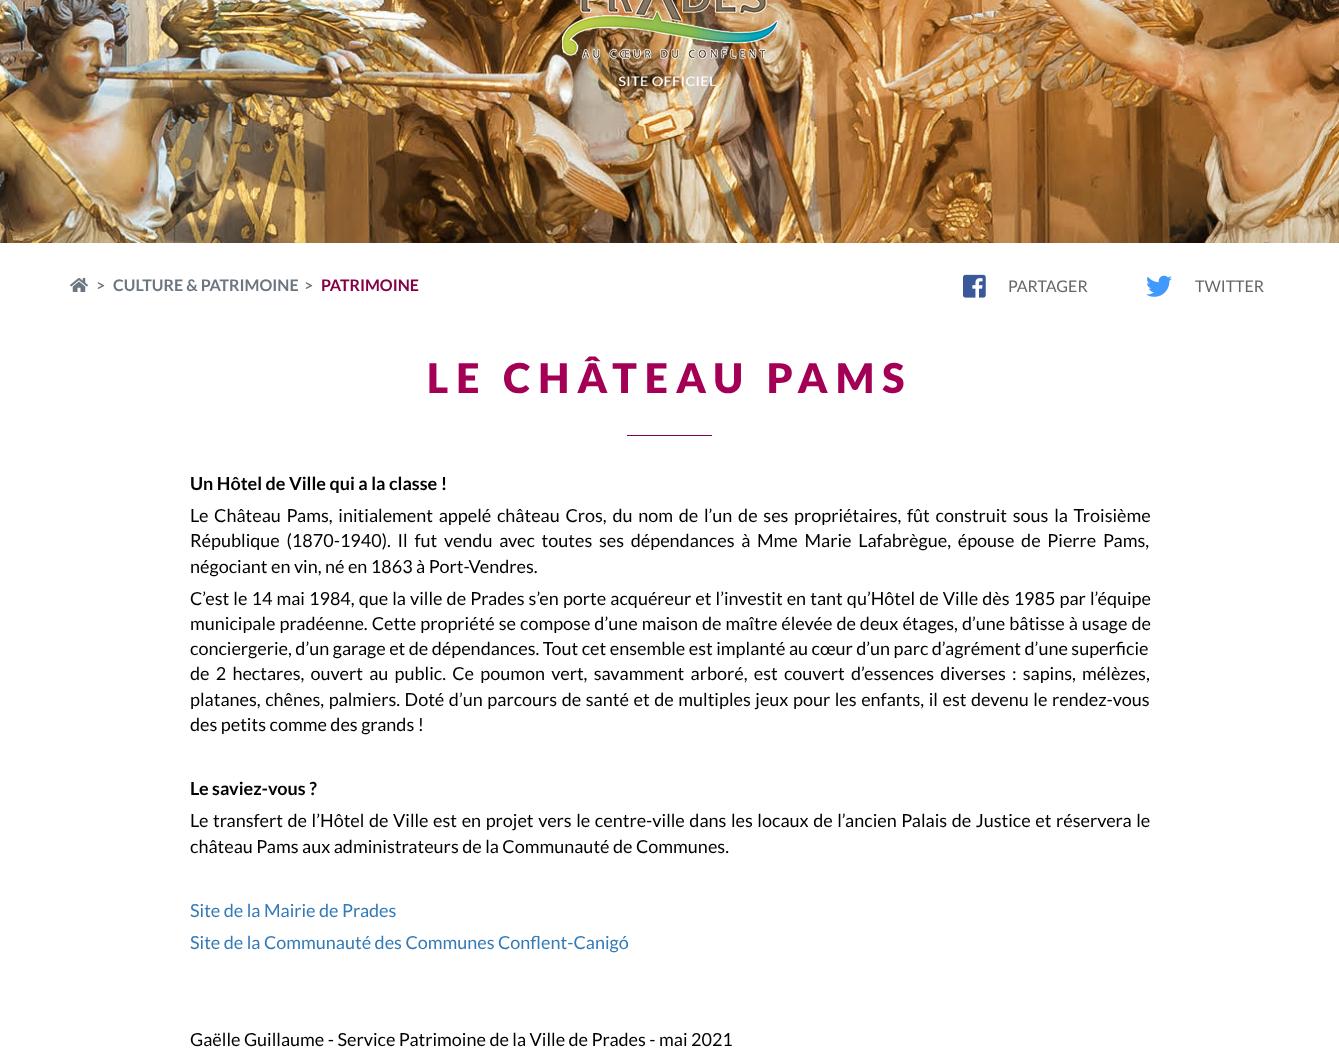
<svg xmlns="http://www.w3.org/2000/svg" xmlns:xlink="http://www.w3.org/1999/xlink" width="1339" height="1055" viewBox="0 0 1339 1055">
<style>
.cls-1{font:bold 16px Lato;fill:#6c7680}
.cls-2{font:bold 16px Lato;fill:#850146}
.cls-3{font:16px Lato;fill:#666666}
.cls-4{font:900 41px Lato;letter-spacing:8px;fill:#a30055}
.cls-5{font:bold 18px Lato;fill:#000000}
.cls-6{font:18px Lato;fill:#000000}
.cls-7{font:18px Lato;fill:#337ab7}
</style>
<rect width="100%" height="100%" fill="#ffffff"/>
<image xlink:href="image0.png" x="0" y="0" width="1339" height="243"/>
<image xlink:href="image1.png" x="562" y="0" width="216" height="86"/>
<image xlink:href="image2.png" x="70" y="278" width="18" height="14"/>
<image xlink:href="image3.png" x="963" y="274" width="23" height="24"/>
<image xlink:href="image4.png" x="1146" y="275" width="26" height="22"/>
<rect fill="#850146" x="627" y="435" width="85" height="1"/>
<text class="cls-1" x="96" y="291">&gt;</text>
<text class="cls-1" x="113" y="291">CULTURE &amp; PATRIMOINE</text>
<text class="cls-1" x="304" y="291">&gt;</text>
<text class="cls-2" x="321" y="291">PATRIMOINE</text>
<text class="cls-3" x="1008" y="292">PARTAGER</text>
<text class="cls-3" x="1195" y="292">TWITTER</text>
<text class="cls-4" x="427" y="393">LE CHÂTEAU PAMS</text>
<text class="cls-5" x="190" y="490">Un Hôtel de Ville qui a la classe !</text>
<text class="cls-6"><tspan x="190" y="522" word-spacing="2.25">Le Château Pams, initialement appelé château Cros, du nom de l’un de ses propriétaires, fût construit sous la Troisième</tspan><tspan x="190" y="547" word-spacing="3.25">République (1870-1940). Il fut vendu avec toutes ses dépendances à Mme Marie Lafabrègue, épouse de Pierre Pams,</tspan><tspan x="190" y="573">négociant en vin, né en 1863 à Port-Vendres.</tspan><tspan x="190" y="605" word-spacing="0.6">C’est le 14 mai 1984, que la ville de Prades s’en porte acquéreur et l’investit en tant qu’Hôtel de Ville dès 1985 par l’équipe</tspan><tspan x="190" y="630" word-spacing="0.5">municipale pradéenne. Cette propriété se compose d’une maison de maître élevée de deux étages, d’une bâtisse à usage de</tspan><tspan x="190" y="655">conciergerie, d’un garage et de dépendances. Tout cet ensemble est implanté au cœur d’un parc d’agrément d’une superficie</tspan><tspan x="190" y="680" word-spacing="2.75">de 2 hectares, ouvert au public. Ce poumon vert, savamment arboré, est couvert d’essences diverses : sapins, mélèzes,</tspan><tspan x="190" y="706" word-spacing="1.1">platanes, chênes, palmiers. Doté d’un parcours de santé et de multiples jeux pour les enfants, il est devenu le rendez-vous</tspan><tspan x="190" y="731">des petits comme des grands !</tspan></text>
<text class="cls-5" x="190" y="795">Le saviez-vous ?</text>
<text class="cls-6"><tspan x="190" y="827" word-spacing="1.1">Le transfert de l’Hôtel de Ville est en projet vers le centre-ville dans les locaux de l’ancien Palais de Justice et réservera le</tspan><tspan x="190" y="853">château Pams aux administrateurs de la Communauté de Communes.</tspan></text>
<text class="cls-7"><tspan x="190" y="917">Site de la Mairie de Prades</tspan><tspan x="190" y="949">Site de la Communauté des Communes Conflent-Canigó</tspan></text>
<text class="cls-6" x="190" y="1046">Gaëlle Guillaume - Service Patrimoine de la Ville de Prades - mai 2021</text>
</svg>
